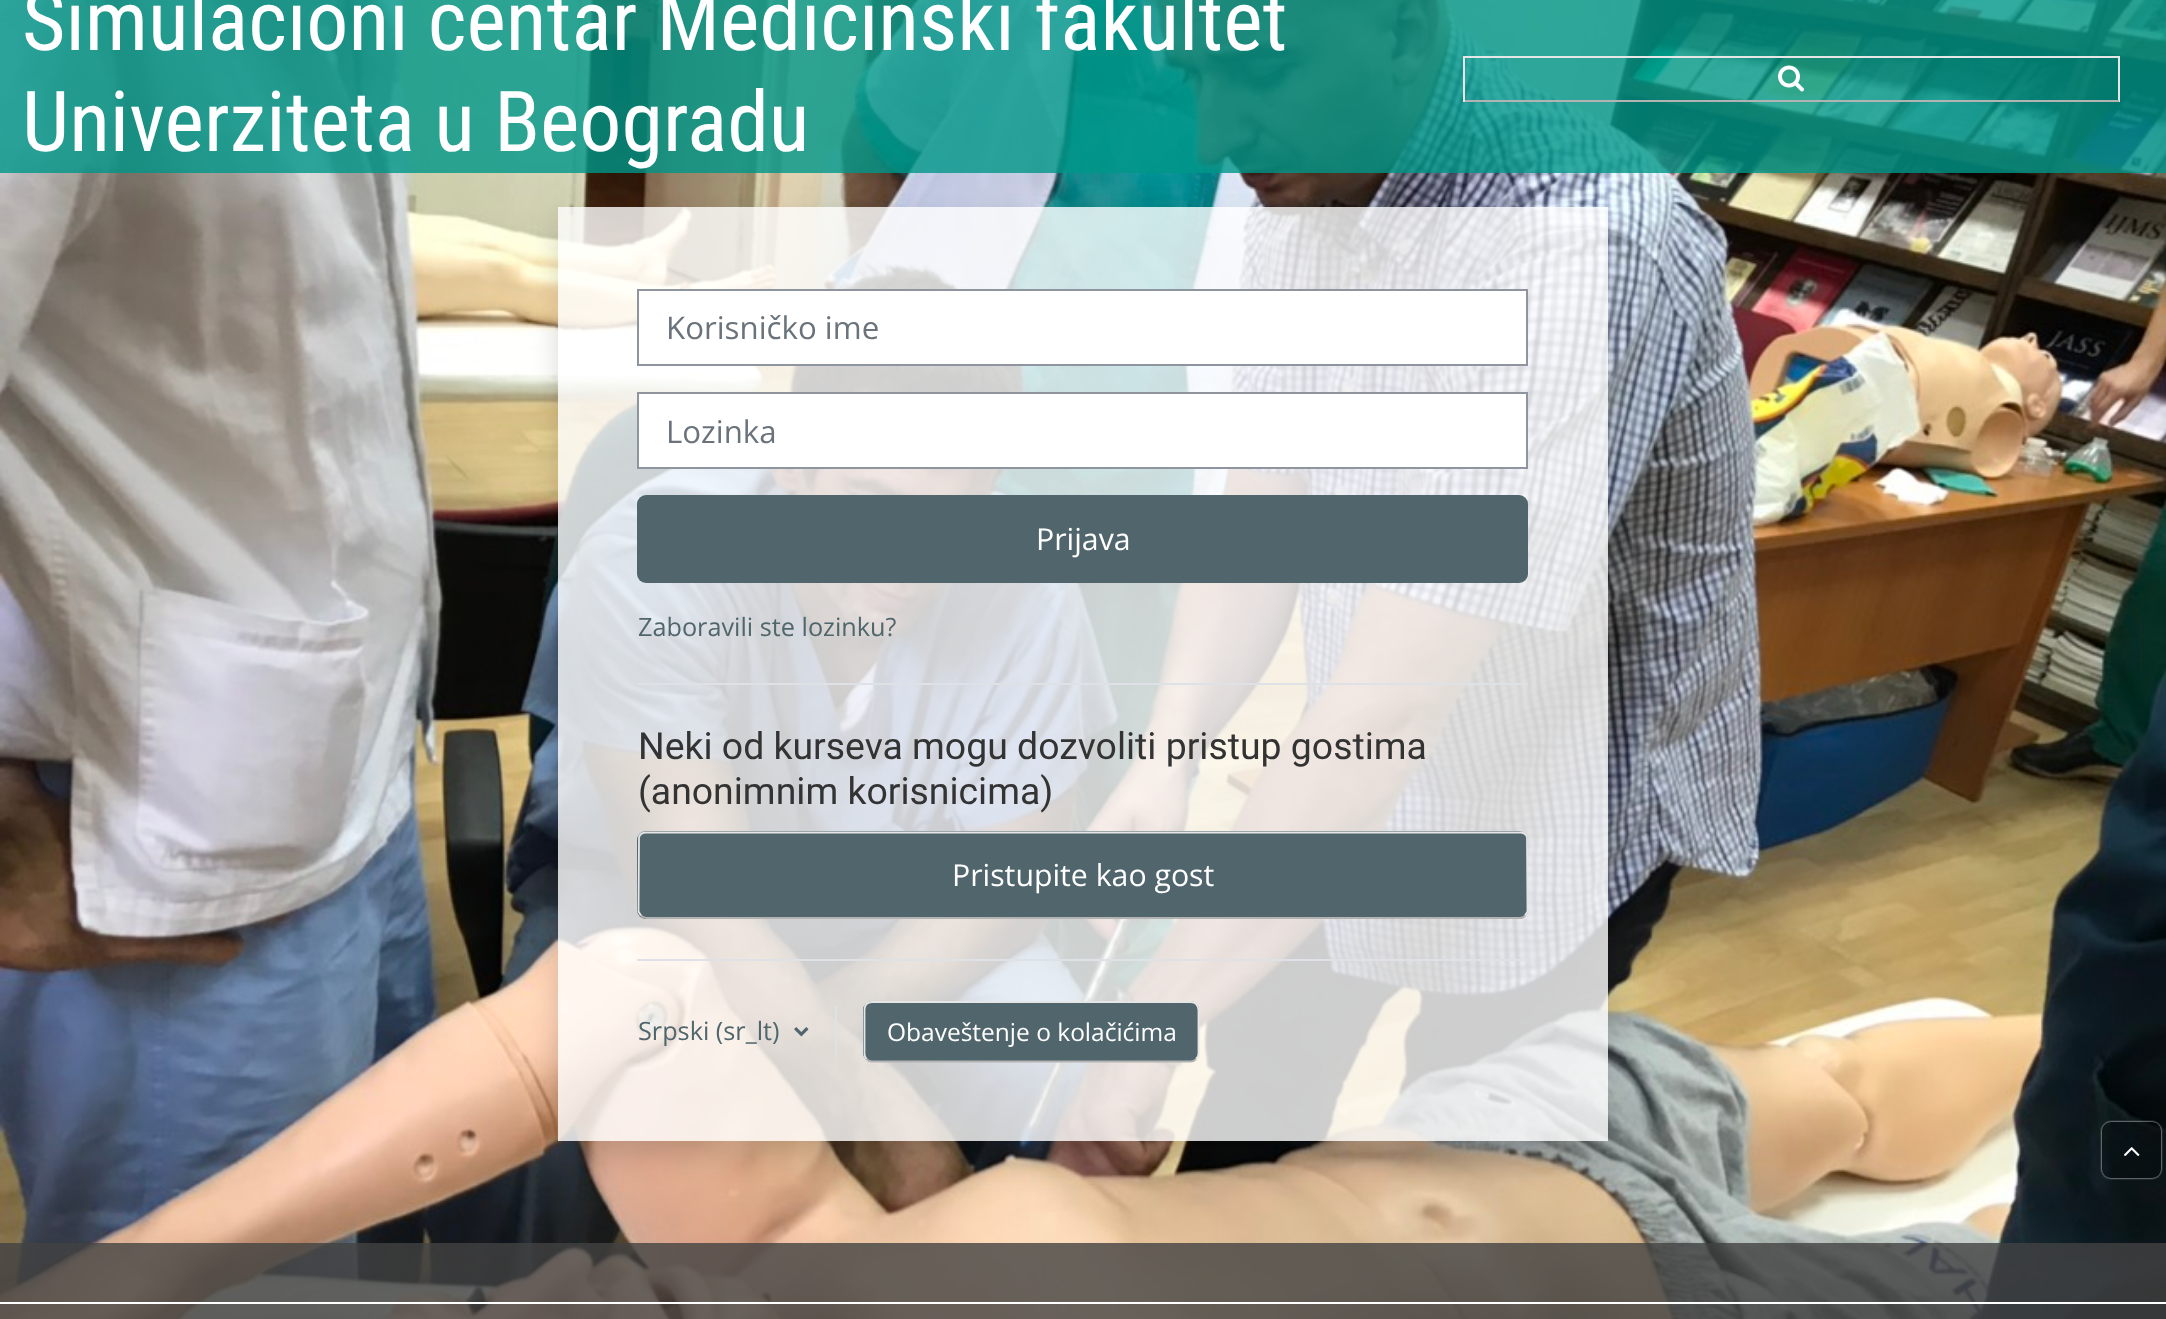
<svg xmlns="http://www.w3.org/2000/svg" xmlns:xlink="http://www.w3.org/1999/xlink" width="2166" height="1319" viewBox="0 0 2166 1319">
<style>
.cls-1{font:84px Roboto Condensed;fill:#ffffff}
.cls-2{font:31.25px Open Sans;fill:#6a737b}
.cls-3{font:30.25px Open Sans;fill:#ffffff}
.cls-4{font:25.25px Open Sans;fill:#51666c}
.cls-5{font:37.4px Roboto;fill:#333333}
.cls-6{font:24.5px Open Sans;fill:#ffffff}
</style>
<defs>
<clipPath id="clip1"><path d="M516 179H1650V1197H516ZM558 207H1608V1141H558Z" clip-rule="evenodd"/></clipPath>
<clipPath id="clip2"><path d="M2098 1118H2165V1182H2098ZM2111 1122H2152C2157 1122 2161 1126 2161 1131V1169C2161 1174 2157 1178 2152 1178H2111C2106 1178 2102 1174 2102 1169V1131C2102 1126 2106 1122 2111 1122Z" clip-rule="evenodd"/></clipPath>
</defs>
<rect width="100%" height="100%" fill="#ffffff"/>
<image xlink:href="image0.png" x="0" y="0" width="2166" height="1319"/>
<rect fill="#009688" fill-opacity="0.8" x="0" y="0" width="2166" height="173"/>
<rect fill="#e6e6e6" x="1463" y="56" width="656" height="2"/>
<rect fill="#e6e6e6" x="2118" y="56" width="2" height="46"/>
<rect fill="#b3b3b3" x="1463" y="100" width="656" height="2"/>
<rect fill="#e6e6e6" x="1463" y="56" width="2" height="46"/>
<image xlink:href="image1.png" x="1778" y="65" width="26" height="27"/>
<g clip-path="url(#clip1)">
<rect fill="#000000" fill-opacity="0.15" filter="blur(13.5px)" x="558" y="221" width="1050" height="934"/>
</g>
<rect fill="#ffffff" fill-opacity="0.8" x="558" y="207" width="1050" height="934"/>
<rect fill="#ffffff" stroke="#8f959e" stroke-width="2" x="638" y="290" width="889" height="75"/>
<rect fill="#ffffff" stroke="#8f959e" stroke-width="2" x="638" y="393" width="889" height="75"/>
<rect fill="#51666c" x="637" y="495" width="891" height="88" rx="9"/>
<rect fill="#dee2e6" x="637" y="683" width="891" height="2"/>
<rect fill="#51666c" x="637" y="831" width="891" height="88" rx="9"/>
<path fill="none" stroke="#b3b3b3" stroke-width="1.8" d="M1525 915.5C1524 917 1522 918 1519.5 918H646.5C644.5 918 642.5 917 641 915.5"/>
<path fill="none" stroke="#e6e6e6" stroke-width="1.8" d="M641 915.5L638.5 911.5L639 837.5C639.5 835 642 833 645 832.5H1521C1524 833 1526.5 835 1527 837.5L1527.5 911.5L1525 915.5"/>
<rect fill="#dee2e6" x="637" y="959" width="891" height="2"/>
<image xlink:href="image2.png" x="794" y="1027" width="15" height="10"/>
<rect fill="#dee2e6" x="835" y="1006" width="2" height="51"/>
<rect fill="#51666c" x="863" y="1001" width="336" height="61" rx="9"/>
<path fill="none" stroke="#b3b3b3" stroke-width="1.8" d="M1196 1059C1195 1060.5 1193 1061.5 1190.5 1061.5H872C870 1061.5 868 1060.5 866.5 1059"/>
<path fill="none" stroke="#e6e6e6" stroke-width="1.8" d="M866.5 1059C865 1057.5 864.5 1055.5 864.5 1053.5V1010C864.5 1007.5 865 1005.5 866.5 1004C868 1002.5 870 1002 872 1002H1190.5C1193 1002 1195 1002.5 1196 1004C1197.5 1005.5 1198.5 1007.5 1198.5 1010V1053.5C1198.5 1055.5 1197.5 1057.5 1196 1059"/>
<g clip-path="url(#clip2)">
<rect fill="#ffffff" filter="blur(1px)" x="2102" y="1122" width="59" height="56" rx="9"/>
</g>
<rect fill="#000000" fill-opacity="0.25" x="2102" y="1122" width="59" height="56" rx="9"/>
<image xlink:href="image3.png" x="2124" y="1147" width="16" height="9"/>
<rect fill="#424242" fill-opacity="0.8" x="0" y="1243" width="2166" height="76"/>
<rect fill="#ffffff" x="0" y="1302" width="2166" height="2"/>
<text class="cls-1"><tspan x="22" y="50">Simulacioni centar Medicinski fakultet</tspan><tspan x="22" y="151">Univerziteta u Beogradu</tspan></text>
<text class="cls-2" x="666" y="339">Korisničko ime</text>
<text class="cls-2" x="666" y="443">Lozinka</text>
<text class="cls-3" x="1036" y="550">Prijava</text>
<text class="cls-4" x="638" y="636">Zaboravili ste lozinku?</text>
<text class="cls-5"><tspan x="638" y="759">Neki od kurseva mogu dozvoliti pristup gostima</tspan><tspan x="638" y="804">(anonimnim korisnicima)</tspan></text>
<text class="cls-3" x="952" y="886">Pristupite kao gost</text>
<text class="cls-4" x="638" y="1040">Srpski (sr_lt)</text>
<text class="cls-6" x="887" y="1041">Obaveštenje o kolačićima</text>
</svg>
